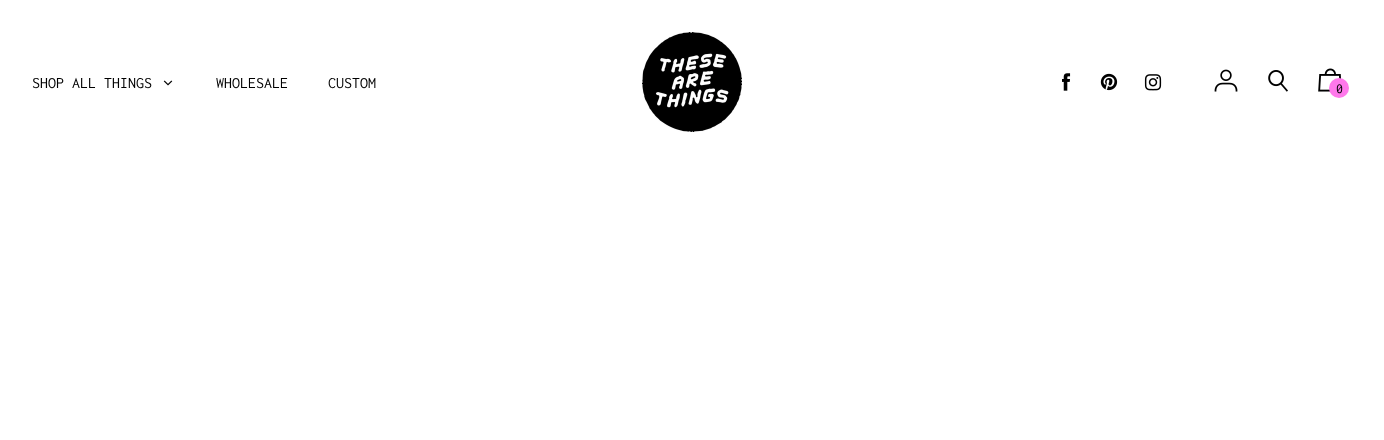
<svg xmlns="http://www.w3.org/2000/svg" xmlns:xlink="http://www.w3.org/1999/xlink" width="1384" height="440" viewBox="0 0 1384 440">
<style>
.cls-1{font:16px Inconsolata;fill:#000000}
.cls-2{font:14px Inconsolata;fill:#000000}
</style>
<rect width="100%" height="100%" fill="#ffffff"/>
<image xlink:href="image0.png" x="163" y="80" width="10" height="6"/>
<image xlink:href="image1.png" x="642" y="32" width="100" height="100"/>
<image xlink:href="image2.png" x="1062" y="73" width="9" height="18"/>
<image xlink:href="image3.png" x="1100" y="73" width="18" height="18"/>
<image xlink:href="image4.png" x="1144" y="74" width="18" height="17"/>
<image xlink:href="image5.png" x="1214" y="69" width="24" height="23"/>
<image xlink:href="image6.png" x="1268" y="70" width="20" height="22"/>
<image xlink:href="image7.png" x="1318" y="68" width="23" height="24"/>
<circle fill="#ff78eb" cx="1339" cy="88" r="10"/>
<text class="cls-1" x="32" y="88">SHOP ALL THINGS</text>
<text class="cls-1" x="216" y="88">WHOLESALE</text>
<text class="cls-1" x="328" y="88">CUSTOM</text>
<text class="cls-2" x="1336" y="93">0</text>
</svg>
